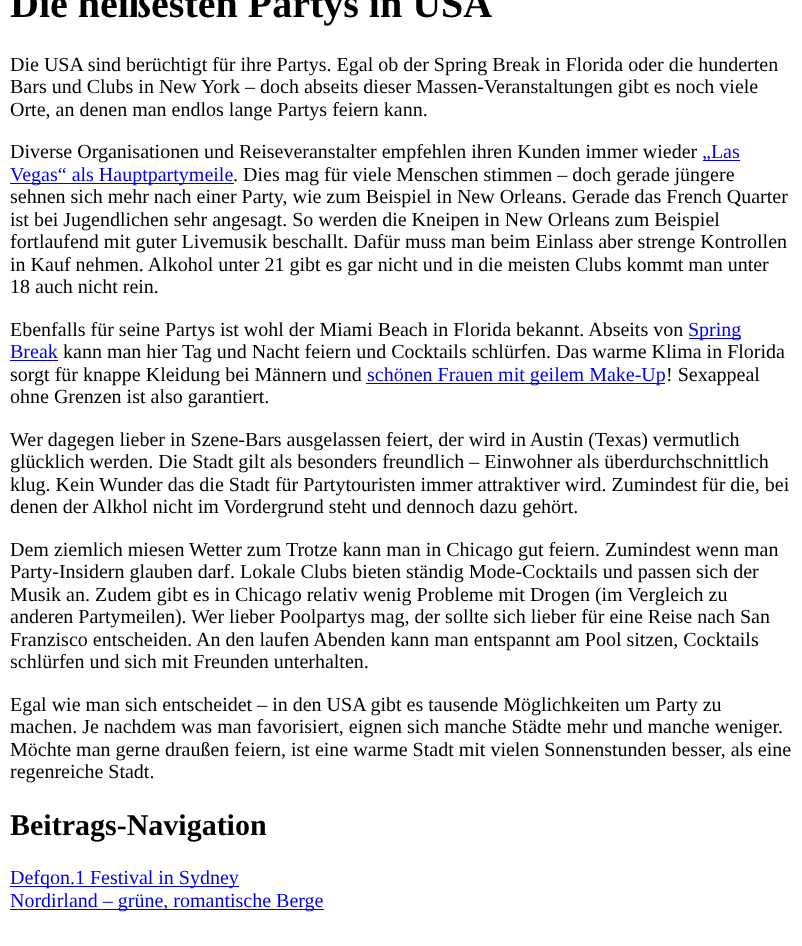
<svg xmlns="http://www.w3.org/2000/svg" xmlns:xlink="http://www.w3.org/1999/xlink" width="802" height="946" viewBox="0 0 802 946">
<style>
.cls-1{font:bold 40px Liberation Serif;fill:#000000}
.cls-2{font:20px Liberation Serif;fill:#000000}
.cls-3{font:20px Liberation Serif;fill:#0000ee}
.cls-4{font:bold 30px Liberation Serif;fill:#000000}
</style>
<rect width="100%" height="100%" fill="#ffffff"/>
<rect fill="#0000ee" x="703" y="160" width="37" height="1"/>
<rect fill="#0000ee" x="10" y="183" width="224" height="1"/>
<rect fill="#0000ee" x="689" y="338" width="52" height="1"/>
<rect fill="#0000ee" x="10" y="360" width="48" height="1"/>
<rect fill="#0000ee" x="366" y="383" width="299" height="1"/>
<rect fill="#0000ee" x="10" y="886" width="229" height="1"/>
<rect fill="#0000ee" x="10" y="909" width="314" height="1"/>
<text class="cls-1" x="10" y="17">Die heißesten Partys in USA</text>
<text class="cls-2"><tspan x="10" y="71">Die USA sind berüchtigt für ihre Partys. Egal ob der Spring Break in Florida oder die hunderten</tspan><tspan x="10" y="93">Bars und Clubs in New York – doch abseits dieser Massen-Veranstaltungen gibt es noch viele</tspan><tspan x="10" y="116">Orte, an denen man endlos lange Partys feiern kann.</tspan></text>
<text class="cls-2" x="10" y="158">Diverse Organisationen und Reiseveranstalter empfehlen ihren Kunden immer wieder</text>
<text class="cls-3" x="702" y="158">„Las</text>
<text class="cls-3" x="10" y="181">Vegas“ als Hauptpartymeile</text>
<text class="cls-2" x="233" y="181">. Dies mag für viele Menschen stimmen – doch gerade jüngere</text>
<text class="cls-2"><tspan x="10" y="203">sehnen sich mehr nach einer Party, wie zum Beispiel in New Orleans. Gerade das French Quarter</tspan><tspan x="10" y="226">ist bei Jugendlichen sehr angesagt. So werden die Kneipen in New Orleans zum Beispiel</tspan><tspan x="10" y="248">fortlaufend mit guter Livemusik beschallt. Dafür muss man beim Einlass aber strenge Kontrollen</tspan><tspan x="10" y="271">in Kauf nehmen. Alkohol unter 21 gibt es gar nicht und in die meisten Clubs kommt man unter</tspan><tspan x="10" y="293">18 auch nicht rein.</tspan></text>
<text class="cls-2" x="10" y="336">Ebenfalls für seine Partys ist wohl der Miami Beach in Florida bekannt. Abseits von</text>
<text class="cls-3" x="688" y="336">Spring</text>
<text class="cls-3" x="10" y="358">Break</text>
<text class="cls-2" x="63" y="358">kann man hier Tag und Nacht feiern und Cocktails schlürfen. Das warme Klima in Florida</text>
<text class="cls-2" x="10" y="381">sorgt für knappe Kleidung bei Männern und</text>
<text class="cls-3" x="367" y="381">schönen Frauen mit geilem Make-Up</text>
<text class="cls-2" x="666" y="381">! Sexappeal</text>
<text class="cls-2" x="10" y="403">ohne Grenzen ist also garantiert.</text>
<text class="cls-2"><tspan x="10" y="446">Wer dagegen lieber in Szene-Bars ausgelassen feiert, der wird in Austin (Texas) vermutlich</tspan><tspan x="10" y="468">glücklich werden. Die Stadt gilt als besonders freundlich – Einwohner als überdurchschnittlich</tspan><tspan x="10" y="491">klug. Kein Wunder das die Stadt für Partytouristen immer attraktiver wird. Zumindest für die, bei</tspan><tspan x="10" y="513">denen der Alkhol nicht im Vordergrund steht und dennoch dazu gehört.</tspan></text>
<text class="cls-2"><tspan x="10" y="556">Dem ziemlich miesen Wetter zum Trotze kann man in Chicago gut feiern. Zumindest wenn man</tspan><tspan x="10" y="578">Party-Insidern glauben darf. Lokale Clubs bieten ständig Mode-Cocktails und passen sich der</tspan><tspan x="10" y="601">Musik an. Zudem gibt es in Chicago relativ wenig Probleme mit Drogen (im Vergleich zu</tspan><tspan x="10" y="623">anderen Partymeilen). Wer lieber Poolpartys mag, der sollte sich lieber für eine Reise nach San</tspan><tspan x="10" y="646">Franzisco entscheiden. An den laufen Abenden kann man entspannt am Pool sitzen, Cocktails</tspan><tspan x="10" y="668">schlürfen und sich mit Freunden unterhalten.</tspan></text>
<text class="cls-2"><tspan x="10" y="711">Egal wie man sich entscheidet – in den USA gibt es tausende Möglichkeiten um Party zu</tspan><tspan x="10" y="733">machen. Je nachdem was man favorisiert, eignen sich manche Städte mehr und manche weniger.</tspan><tspan x="10" y="756">Möchte man gerne draußen feiern, ist eine warme Stadt mit vielen Sonnenstunden besser, als eine</tspan><tspan x="10" y="778">regenreiche Stadt.</tspan></text>
<text class="cls-4" x="10" y="835">Beitrags-Navigation</text>
<text class="cls-3"><tspan x="10" y="884">Defqon.1 Festival in Sydney</tspan><tspan x="10" y="907">Nordirland – grüne, romantische Berge</tspan></text>
</svg>
